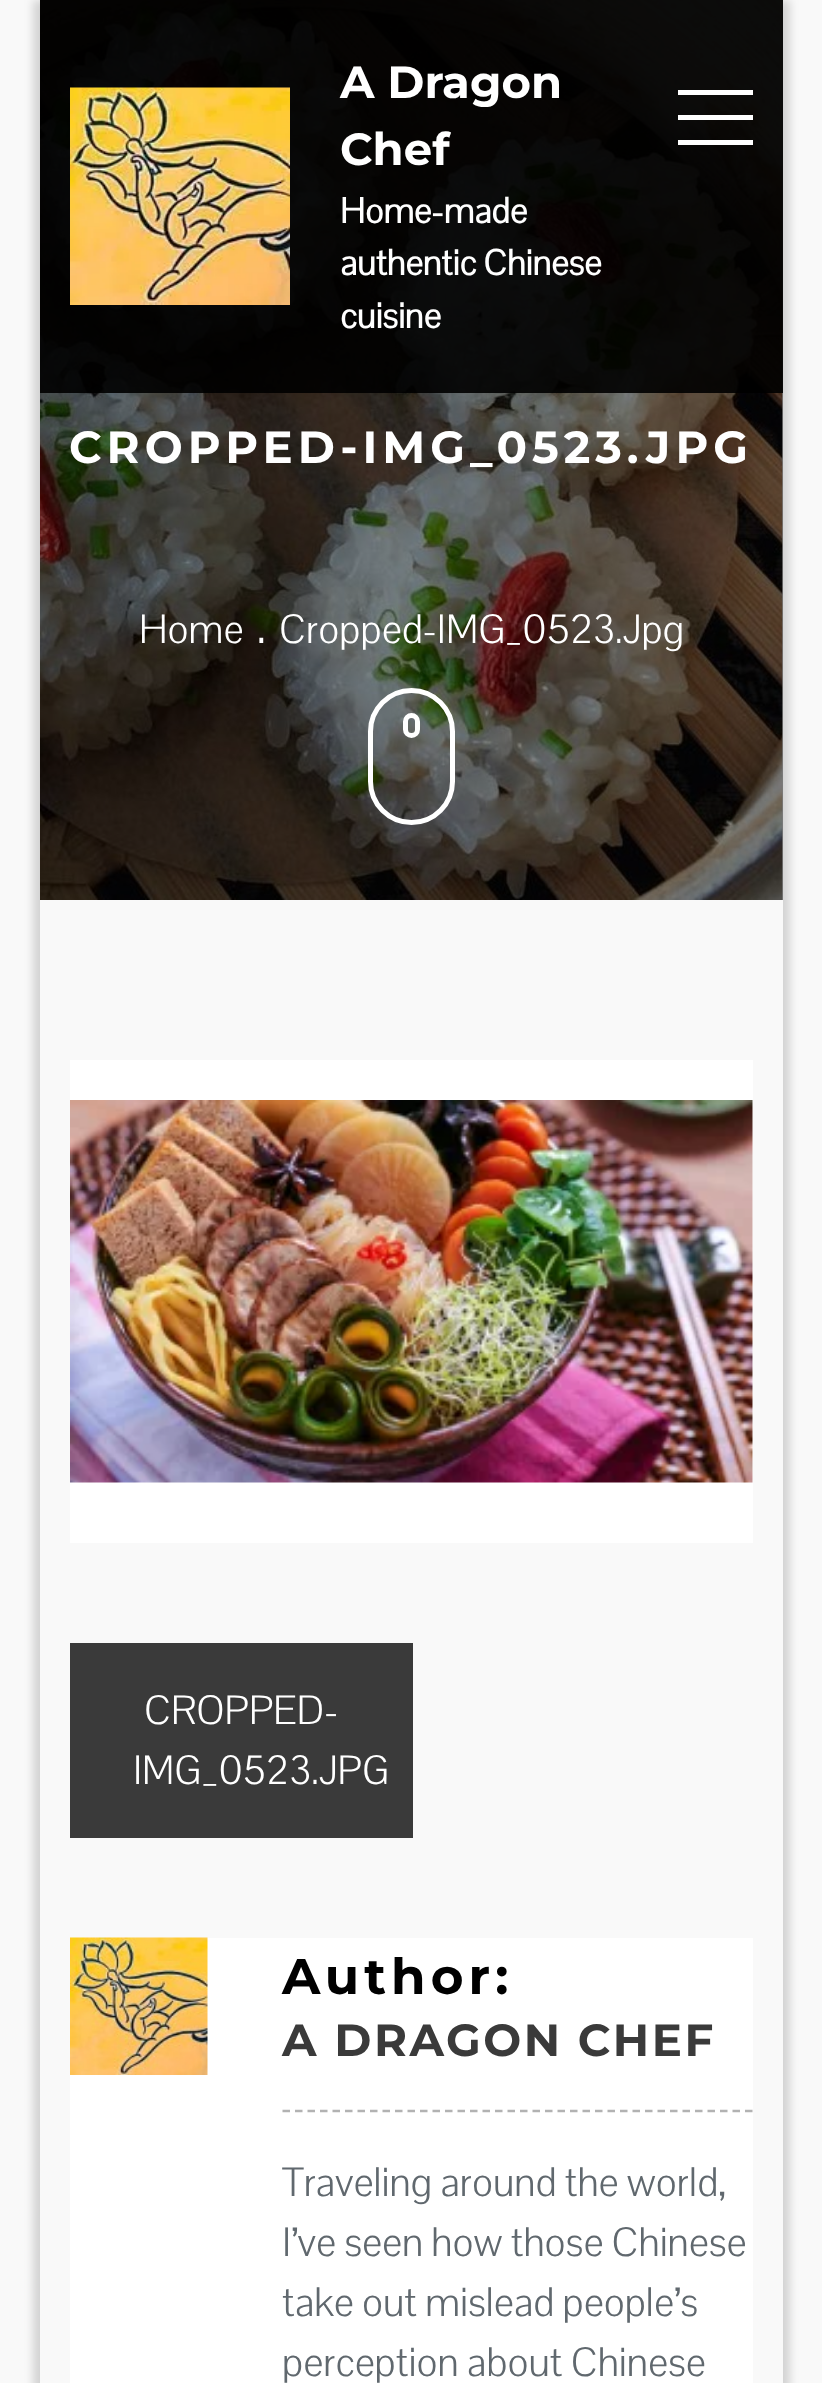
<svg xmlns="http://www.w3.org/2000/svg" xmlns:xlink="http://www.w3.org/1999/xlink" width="822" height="2383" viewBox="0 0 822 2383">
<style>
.cls-1{font:100 45px Montserrat;fill:#ffffff}
.cls-2{font:bold 35px Pontano Sans;fill:#ffffff}
.cls-3{font:100 45px Montserrat;letter-spacing:5px;fill:#ffffff}
.cls-4{font:300 40px Pontano Sans;fill:#ffffff}
.cls-5{font:300 50px Pontano Sans;fill:#ffffff}
.cls-6{font:100 50px Montserrat;letter-spacing:5px;fill:#000000}
.cls-7{font:100 45px Montserrat;letter-spacing:2.5px;fill:#3a3a3a}
.cls-8{font:300 40px Pontano Sans;fill:#60686e}
</style>
<defs>
<clipPath id="clip1"><path d="M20 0H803V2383H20ZM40 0H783V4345H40Z" clip-rule="evenodd"/></clipPath>
</defs>
<rect width="100%" height="100%" fill="#f9f9f9"/>
<g clip-path="url(#clip1)">
<rect fill="#000000" fill-opacity="0.15" filter="blur(4px)" x="33" y="0" width="757" height="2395"/>
</g>
<image xlink:href="image1.png" x="40" y="0" width="743" height="900"/>
<rect fill="#000000" fill-opacity="0.5" x="40" y="0" width="743" height="900"/>
<rect fill="#000000" fill-opacity="0.9" x="40" y="0" width="743" height="393"/>
<image xlink:href="image0.png" x="70" y="87" width="220" height="218"/>
<rect fill="#ffffff" x="678" y="90" width="75" height="5"/>
<rect fill="#ffffff" x="678" y="115" width="75" height="5"/>
<rect fill="#ffffff" x="678" y="140" width="75" height="5"/>
<rect fill="none" stroke="#ffffff" stroke-width="5" x="370.5" y="690.5" width="82" height="132" rx="41"/>
<rect fill="none" stroke="#ffffff" stroke-width="5" x="405.5" y="715.5" width="12" height="20" rx="6"/>
<rect fill="#ffffff" x="70" y="1060" width="683" height="483"/>
<image xlink:href="image2.png" x="70" y="1100" width="683" height="383"/>
<rect fill="#3a3a3a" x="70" y="1643" width="343" height="195"/>
<rect fill="#ffffff" x="70" y="1938" width="683" height="445"/>
<image xlink:href="image3.png" x="70" y="1937" width="138" height="138"/>
<path fill="none" stroke="#b2b2b2" stroke-width="2.5" stroke-dasharray="7.5 5" d="M282.5 2111H752.5"/>
<text class="cls-1"><tspan x="340" y="98">A Dragon</tspan><tspan x="340" y="165">Chef</tspan></text>
<text class="cls-2"><tspan x="340" y="223">Home-made</tspan><tspan x="340" y="275">authentic Chinese</tspan><tspan x="340" y="328">cuisine</tspan></text>
<text class="cls-3" x="69" y="463">CROPPED-IMG_0523.JPG</text>
<text class="cls-4" x="139" y="643">Home</text>
<text class="cls-5" x="256" y="643">.</text>
<text class="cls-4" x="279" y="643">Cropped-IMG_0523.Jpg</text>
<text class="cls-4" x="144" y="1724">CROPPED-</text>
<text class="cls-4" x="133" y="1784">IMG_0523.JPG</text>
<text class="cls-6" x="282" y="1994">Author:</text>
<text class="cls-7" x="282" y="2056">A DRAGON CHEF</text>
<text class="cls-8"><tspan x="282" y="2196">Traveling around the world,</tspan><tspan x="282" y="2256">I’ve seen how those Chinese</tspan><tspan x="282" y="2316">take out mislead people’s</tspan><tspan x="282" y="2376">perception about Chinese</tspan></text>
</svg>
